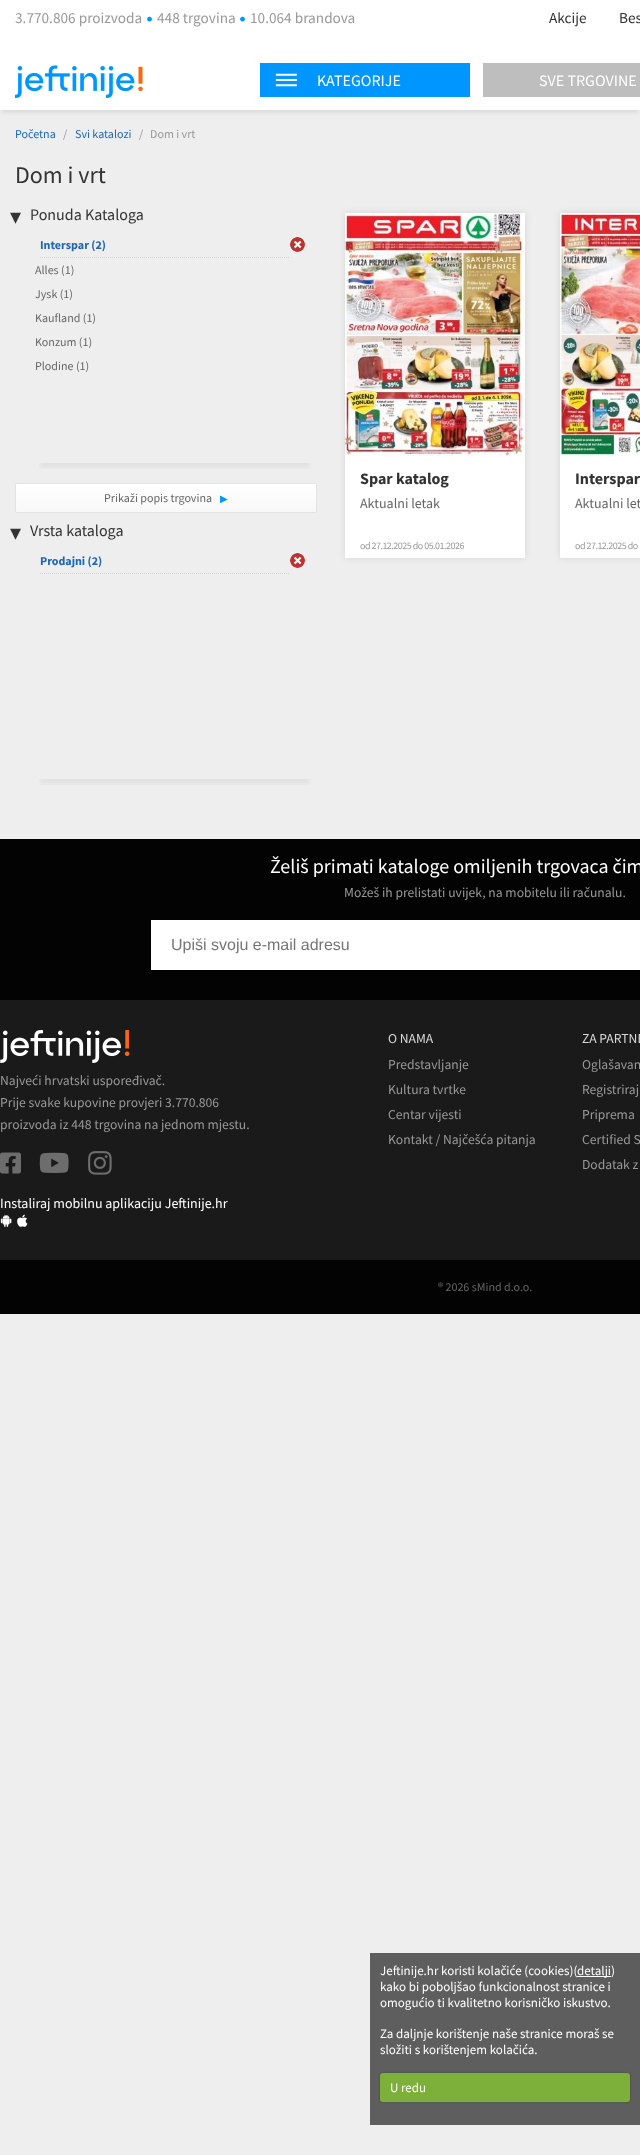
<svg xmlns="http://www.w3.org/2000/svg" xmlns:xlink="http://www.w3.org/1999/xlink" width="640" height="2155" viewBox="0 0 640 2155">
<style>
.cls-1{font:15.25px Source Sans Pro;fill:#999999}
.cls-2{font:15.25px Source Sans Pro;fill:#333333}
.cls-3{font:16px Source Sans Pro;fill:#ffffff}
.cls-4{font:12px Source Sans Pro;fill:#1e67b3}
.cls-5{font:12px Source Sans Pro;fill:#999999}
.cls-6{font:24px Source Sans Pro;fill:#333333}
.cls-7{font:22px DejaVu Sans;fill:#333333}
.cls-8{font:16px Source Sans Pro;fill:#333333}
.cls-9{font:bold 12px Source Sans Pro;fill:#1e67b3}
.cls-10{font:12px Source Sans Pro;fill:#666666}
.cls-11{font:10px DejaVu Sans;fill:#0096ff}
.cls-12{font:bold 16px Source Sans Pro;fill:#333333}
.cls-13{font:14px Source Sans Pro;fill:#666666}
.cls-14{font:10px Source Sans Pro;letter-spacing:-0.5px;fill:#999999}
.cls-15{font:20px Source Sans Pro;fill:#ffffff}
.cls-16{font:13.6px Source Sans Pro;fill:#999999}
.cls-17{font:16px Liberation Sans;fill:#757575}
.cls-18{font:14px Source Sans Pro;fill:#ffffff}
.cls-19{font:13.6px Source Sans Pro;fill:#d8d8d8}
.cls-20{font:13px Source Sans Pro;fill:#ffffff}
</style>
<defs>
<clipPath id="clip1"><rect x="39" y="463" width="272" height="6"/></clipPath>
<clipPath id="clip2"><rect x="15" y="483" width="302" height="30" rx="2"/></clipPath>
<linearGradient id="g1" gradientUnits="userSpaceOnUse" x1="166" y1="484" x2="166" y2="512"><stop offset="0" stop-color="#ffffff"/><stop offset="1" stop-color="#f8f8f8"/></linearGradient>
<clipPath id="clip3"><rect x="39" y="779" width="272" height="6"/></clipPath>
</defs>
<rect width="100%" height="100%" fill="#eeeeee"/>
<rect fill="#ffffff" x="0" y="0" width="640" height="50"/>
<image xlink:href="image0.png" x="147" y="16" width="5" height="6"/>
<image xlink:href="image0.png" x="240" y="16" width="5" height="6"/>
<rect fill="#000000" fill-opacity="0.1" filter="blur(2px)" x="2" y="56" width="636" height="56"/>
<rect fill="#ffffff" x="0" y="50" width="640" height="60"/>
<image xlink:href="image1.png" x="15" y="65" width="128" height="33"/>
<rect fill="#0096ff" x="260" y="63" width="210" height="34"/>
<image xlink:href="image2.png" x="275" y="73" width="22" height="14"/>
<rect fill="#bebebe" x="483" y="63" width="157" height="34"/>
<path fill="none" stroke="#d2d2d3" stroke-dasharray="1 1" d="M40 257.5H290"/>
<image xlink:href="image3.png" x="290" y="237" width="15" height="15"/>
<g clip-path="url(#clip1)">
<rect fill="#000000" fill-opacity="0.05" filter="blur(2.5px)" x="40" y="273" width="270" height="195"/>
</g>
<g clip-path="url(#clip2)">
<rect fill="url(#g1)" x="15" y="484" width="302" height="28"/>
</g>
<rect fill="none" stroke="#e3e3e3" x="15.5" y="483.5" width="301" height="29" rx="1.5"/>
<path fill="none" stroke="#d2d2d3" stroke-dasharray="1 1" d="M40 573.5H290"/>
<image xlink:href="image3.png" x="290" y="553" width="15" height="15"/>
<g clip-path="url(#clip3)">
<rect fill="#000000" fill-opacity="0.05" filter="blur(2.5px)" x="40" y="589" width="270" height="195"/>
</g>
<rect fill="#000000" fill-opacity="0.1" filter="blur(3.5px)" x="345" y="213" width="180" height="345"/>
<rect fill="#ffffff" x="345" y="456" width="180" height="102"/>
<image xlink:href="image4.png" x="345" y="213" width="180" height="243"/>
<rect fill="#000000" fill-opacity="0.1" filter="blur(3.5px)" x="560" y="213" width="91" height="345"/>
<rect fill="#ffffff" x="560" y="456" width="80" height="102"/>
<image xlink:href="image5.png" x="560" y="213" width="80" height="243"/>
<rect fill="#030303" x="0" y="839" width="640" height="161"/>
<rect fill="#ffffff" x="151" y="920" width="489" height="50"/>
<rect fill="#1a1a1a" x="0" y="1000" width="640" height="260"/>
<image xlink:href="image6.png" x="0" y="1030" width="130" height="33"/>
<image xlink:href="image7.png" x="0" y="1152" width="21" height="22"/>
<image xlink:href="image8.png" x="39" y="1152" width="30" height="21"/>
<image xlink:href="image9.png" x="88" y="1151" width="24" height="24"/>
<image xlink:href="image10.png" x="0" y="1214" width="12" height="13"/>
<image xlink:href="image11.png" x="17" y="1214" width="11" height="13"/>
<rect fill="#030303" x="0" y="1260" width="640" height="54"/>
<rect fill="#5e5e5e" x="370" y="1953" width="270" height="172"/>
<rect fill="#ffffff" x="577" y="1976" width="34" height="1"/>
<rect fill="#000000" fill-opacity="0.25" filter="blur(1px)" x="380" y="2073" width="250" height="29" rx="3"/>
<rect fill="#7daf3b" x="380" y="2073" width="250" height="29" rx="3"/>
<text class="cls-1" x="15" y="23">3.770.806 proizvoda</text>
<text class="cls-1" x="157" y="23">448 trgovina</text>
<text class="cls-1" x="250" y="23">10.064 brandova</text>
<text class="cls-2" x="549" y="23">Akcije</text>
<text class="cls-2" x="619" y="23">Bes</text>
<text class="cls-3" x="317" y="86">KATEGORIJE</text>
<text class="cls-3" x="539" y="86">SVE TRGOVINE</text>
<text class="cls-4" x="15" y="138">Početna</text>
<text class="cls-5" x="63" y="138">/</text>
<text class="cls-4" x="75" y="138">Svi katalozi</text>
<text class="cls-5" x="139" y="138">/</text>
<text class="cls-5" x="150" y="138">Dom i vrt</text>
<text class="cls-6" x="15" y="183">Dom i vrt</text>
<text class="cls-7" x="10" y="224">▾</text>
<text class="cls-8" x="30" y="220">Ponuda Kataloga</text>
<text class="cls-9" x="40" y="249">Interspar (2)</text>
<text class="cls-10" x="35" y="274">Alles (1)</text>
<text class="cls-10" x="35" y="298">Jysk (1)</text>
<text class="cls-10" x="35" y="322">Kaufland (1)</text>
<text class="cls-10" x="35" y="346">Konzum (1)</text>
<text class="cls-10" x="35" y="370">Plodine (1)</text>
<text class="cls-10" x="104" y="502">Prikaži popis trgovina</text>
<text class="cls-11" x="220" y="502">▶</text>
<text class="cls-7" x="10" y="540">▾</text>
<text class="cls-8" x="30" y="536">Vrsta kataloga</text>
<text class="cls-9" x="40" y="565">Prodajni (2)</text>
<text class="cls-12" x="360" y="484">Spar katalog</text>
<text class="cls-13" x="360" y="508">Aktualni letak</text>
<text class="cls-14" x="360" y="549">od 27.12.2025 do 05.01.2026</text>
<text class="cls-12" x="575" y="484">Interspar</text>
<text class="cls-13" x="575" y="508">Aktualni let</text>
<text class="cls-14" x="575" y="549">od 27.12.2025 do</text>
<text class="cls-15" x="270" y="873">Želiš primati kataloge omiljenih trgovaca čim</text>
<text class="cls-16" x="344" y="897">Možeš ih prelistati uvijek, na mobitelu ili računalu.</text>
<text class="cls-17" x="171" y="950">Upiši svoju e-mail adresu</text>
<text class="cls-16"><tspan x="0" y="1085">Najveći hrvatski uspoređivač.</tspan><tspan x="0" y="1107">Prije svake kupovine provjeri 3.770.806</tspan><tspan x="0" y="1129">proizvoda iz 448 trgovina na jednom mjestu.</tspan></text>
<text class="cls-18" x="0" y="1208">Instaliraj mobilnu aplikaciju Jeftinije.hr</text>
<text class="cls-19" x="388" y="1043">O NAMA</text>
<text class="cls-16"><tspan x="388" y="1069">Predstavljanje</tspan><tspan x="388" y="1094">Kultura tvrtke</tspan><tspan x="388" y="1119">Centar vijesti</tspan><tspan x="388" y="1144">Kontakt / Najčešća pitanja</tspan></text>
<text class="cls-19" x="582" y="1043">ZA PARTNE</text>
<text class="cls-16"><tspan x="582" y="1069">Oglašavan</tspan><tspan x="582" y="1094">Registriraj</tspan><tspan x="582" y="1119">Priprema</tspan><tspan x="582" y="1144">Certified S</tspan><tspan x="582" y="1169">Dodatak z</tspan></text>
<text class="cls-10" x="438" y="1291">® 2026 sMind d.o.o.</text>
<text class="cls-20" x="380" y="1975">Jeftinije.hr koristi kolačiće (cookies)(</text>
<text class="cls-20" x="577" y="1975">detalji)</text>
<text class="cls-20"><tspan x="380" y="1991">kako bi poboljšao funkcionalnost stranice i</tspan><tspan x="380" y="2007">omogućio ti kvalitetno korisničko iskustvo.</tspan></text>
<text class="cls-20"><tspan x="380" y="2038">Za daljnje korištenje naše stranice moraš se</tspan><tspan x="380" y="2054">složiti s korištenjem kolačića.</tspan></text>
<text class="cls-20" x="390" y="2092">U redu</text>
</svg>
